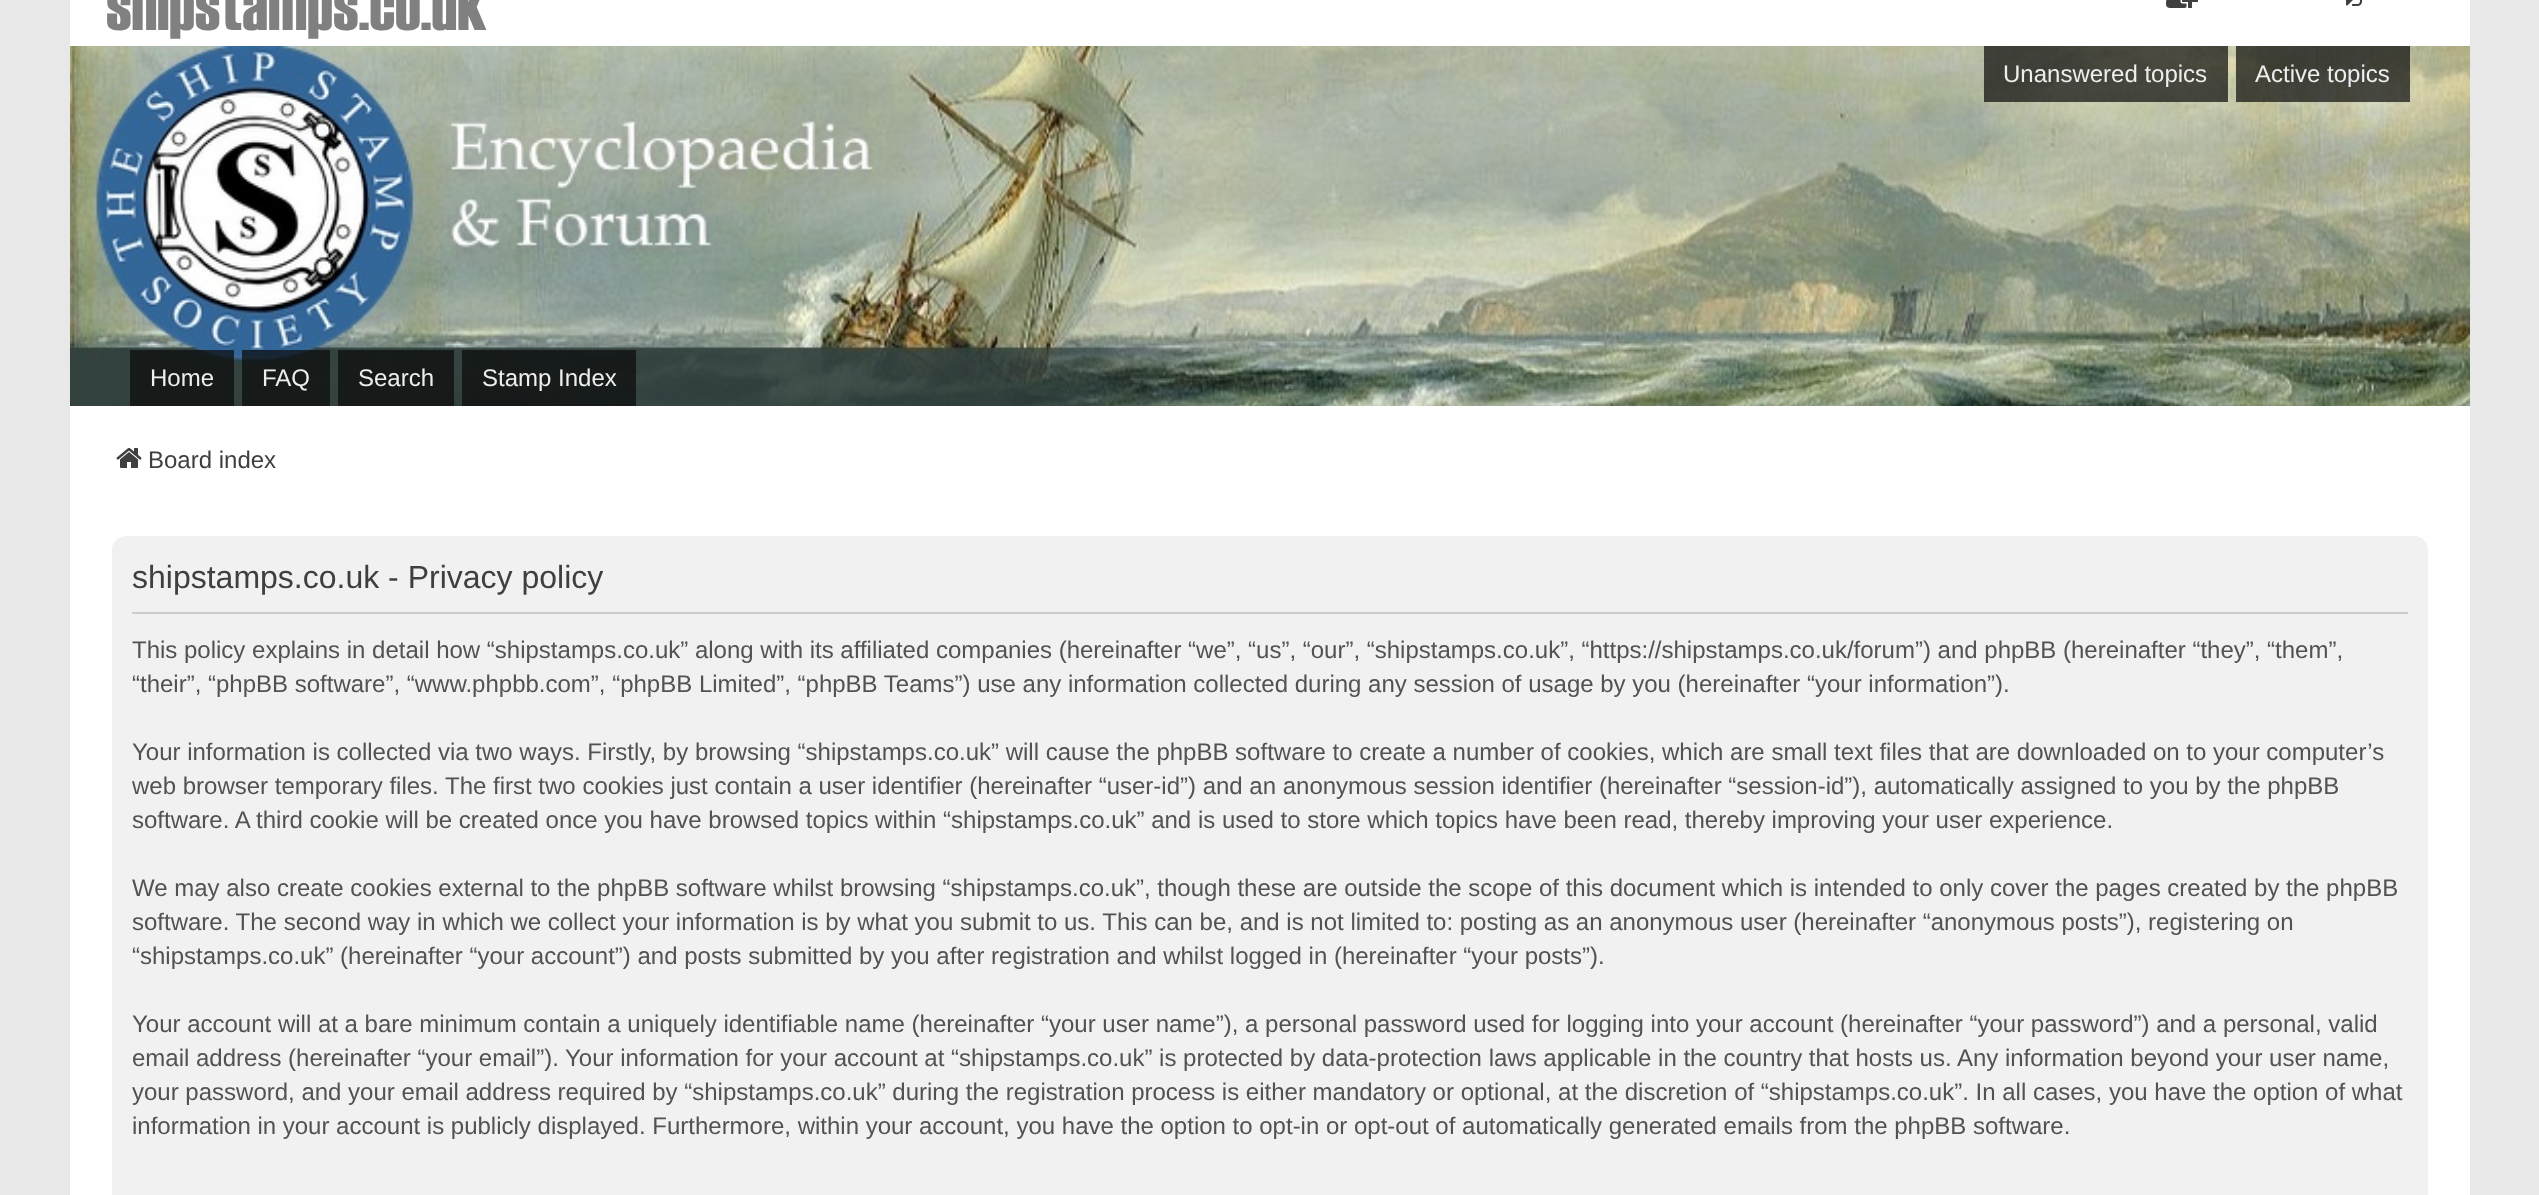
<svg xmlns="http://www.w3.org/2000/svg" xmlns:xlink="http://www.w3.org/1999/xlink" width="2539" height="1195" viewBox="0 0 2539 1195">
<style>
.cls-1{font:500 72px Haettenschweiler;fill:#808080}
.cls-2{font:24px Liberation Sans;fill:#3f3f3f}
.cls-3{font:32px Liberation Sans;fill:#3f3f3f}
.cls-4{font:24px Liberation Sans;fill:#525252}
.cls-5{font:24px Liberation Sans;fill:#eeeeee}
</style>
<rect width="100%" height="100%" fill="#e8e8e8"/>
<rect fill="#ffffff" x="70" y="0" width="2400" height="46"/>
<image xlink:href="image0.png" x="2166" y="0" width="32" height="8"/>
<image xlink:href="image1.png" x="2346" y="0" width="16" height="6"/>
<rect fill="#ffffff" x="70" y="406" width="2400" height="789"/>
<image xlink:href="image2.png" x="116" y="448" width="26" height="20"/>
<rect fill="#f1f1f1" x="112" y="536" width="2316" height="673" rx="14"/>
<rect fill="#cccccc" x="132" y="612" width="2276" height="2"/>
<image xlink:href="image3.png" x="70" y="46" width="2400" height="360"/>
<rect fill="#0a0a0a" fill-opacity="0.7" x="1984" y="46" width="244" height="56"/>
<rect fill="#0a0a0a" fill-opacity="0.7" x="2236" y="46" width="174" height="56"/>
<rect fill="#0a0a0a" fill-opacity="0.7" x="130" y="350" width="104" height="56"/>
<rect fill="#0a0a0a" fill-opacity="0.7" x="242" y="350" width="88" height="56"/>
<rect fill="#0a0a0a" fill-opacity="0.7" x="338" y="350" width="116" height="56"/>
<rect fill="#0a0a0a" fill-opacity="0.7" x="462" y="350" width="174" height="56"/>
<text class="cls-1" x="106" y="30">shipstamps.co.uk</text>
<text class="cls-2" x="148" y="468">Board index</text>
<text class="cls-3" x="132" y="588">shipstamps.co.uk - Privacy policy</text>
<text class="cls-4"><tspan x="132" y="658">This policy explains in detail how “shipstamps.co.uk” along with its affiliated companies (hereinafter “we”, “us”, “our”, “shipstamps.co.uk”, “https://shipstamps.co.uk/forum”) and phpBB (hereinafter “they”, “them”,</tspan><tspan x="132" y="692">“their”, “phpBB software”, “www.phpbb.com”, “phpBB Limited”, “phpBB Teams”) use any information collected during any session of usage by you (hereinafter “your information”).</tspan></text>
<text class="cls-4"><tspan x="132" y="760">Your information is collected via two ways. Firstly, by browsing “shipstamps.co.uk” will cause the phpBB software to create a number of cookies, which are small text files that are downloaded on to your computer’s</tspan><tspan x="132" y="794">web browser temporary files. The first two cookies just contain a user identifier (hereinafter “user-id”) and an anonymous session identifier (hereinafter “session-id”), automatically assigned to you by the phpBB</tspan><tspan x="132" y="828">software. A third cookie will be created once you have browsed topics within “shipstamps.co.uk” and is used to store which topics have been read, thereby improving your user experience.</tspan></text>
<text class="cls-4"><tspan x="132" y="896">We may also create cookies external to the phpBB software whilst browsing “shipstamps.co.uk”, though these are outside the scope of this document which is intended to only cover the pages created by the phpBB</tspan><tspan x="132" y="930">software. The second way in which we collect your information is by what you submit to us. This can be, and is not limited to: posting as an anonymous user (hereinafter “anonymous posts”), registering on</tspan><tspan x="132" y="964">“shipstamps.co.uk” (hereinafter “your account”) and posts submitted by you after registration and whilst logged in (hereinafter “your posts”).</tspan></text>
<text class="cls-4"><tspan x="132" y="1032">Your account will at a bare minimum contain a uniquely identifiable name (hereinafter “your user name”), a personal password used for logging into your account (hereinafter “your password”) and a personal, valid</tspan><tspan x="132" y="1066">email address (hereinafter “your email”). Your information for your account at “shipstamps.co.uk” is protected by data-protection laws applicable in the country that hosts us. Any information beyond your user name,</tspan><tspan x="132" y="1100">your password, and your email address required by “shipstamps.co.uk” during the registration process is either mandatory or optional, at the discretion of “shipstamps.co.uk”. In all cases, you have the option of what</tspan><tspan x="132" y="1134">information in your account is publicly displayed. Furthermore, within your account, you have the option to opt-in or opt-out of automatically generated emails from the phpBB software.</tspan></text>
<text class="cls-5" x="2003" y="82">Unanswered topics</text>
<text class="cls-5" x="2255" y="82">Active topics</text>
<text class="cls-5" x="150" y="386">Home</text>
<text class="cls-5" x="262" y="386">FAQ</text>
<text class="cls-5" x="358" y="386">Search</text>
<text class="cls-5" x="482" y="386">Stamp Index</text>
</svg>
